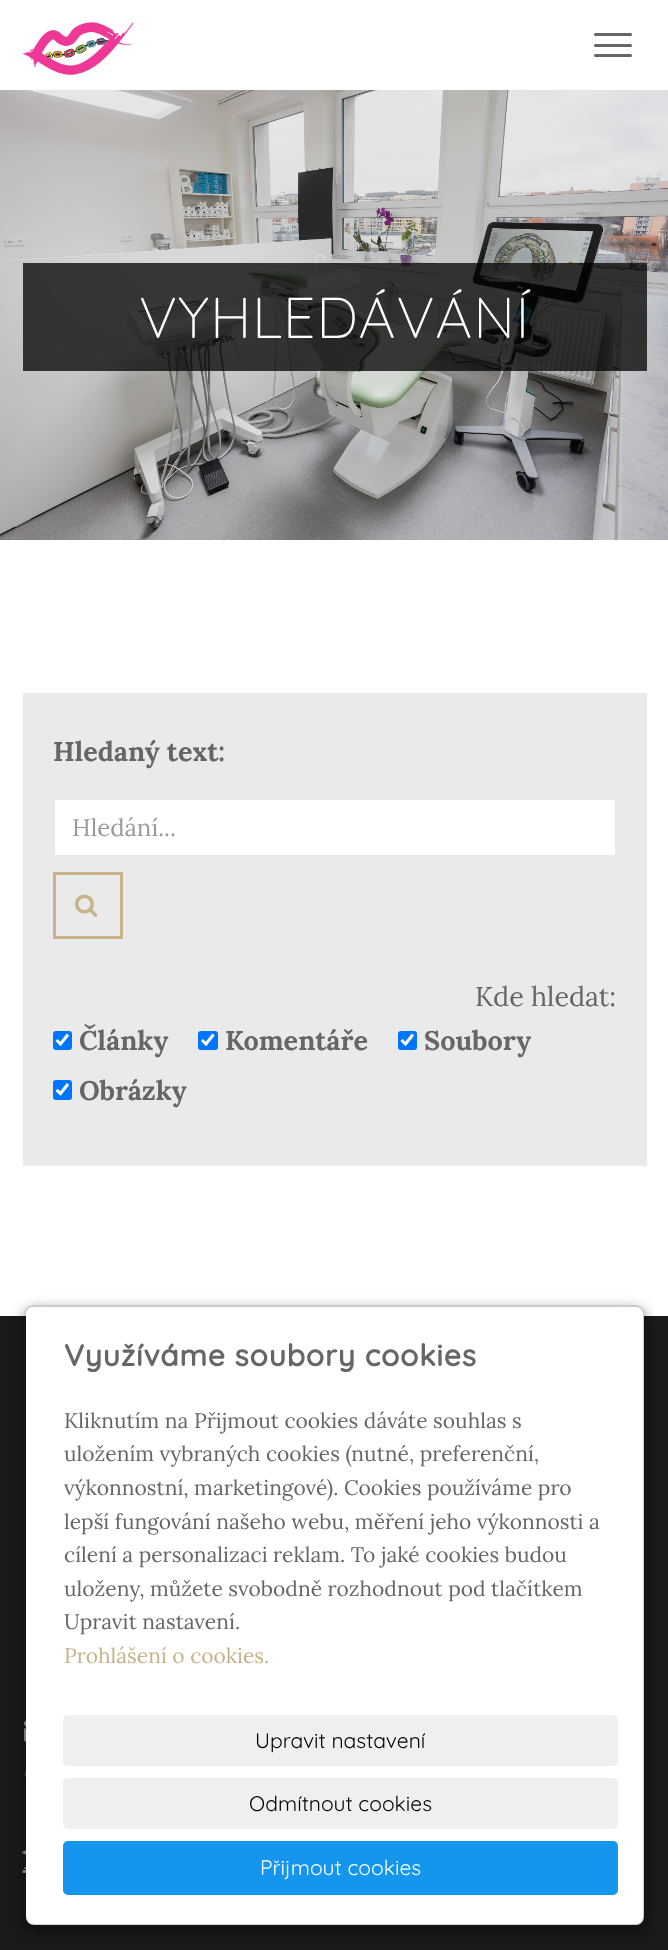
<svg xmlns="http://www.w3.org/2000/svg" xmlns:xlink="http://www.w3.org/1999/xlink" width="668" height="1950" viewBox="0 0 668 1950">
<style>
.cls-1{font:300 57.5px Quicksand;letter-spacing:0.75px;fill:#ffffff}
.cls-2{font:bold 27px Lora;fill:#666666}
.cls-3{font:24px Lora;fill:#999999}
.cls-4{font:27px Lora;fill:#666666}
.cls-5{font:bold 30px Quicksand;letter-spacing:0.75px;fill:#666666}
.cls-6{font:21px Lora;fill:#666666}
.cls-7{font:21px Lora;fill:#c7b28a}
.cls-8{font:21px Quicksand;fill:#000000}
.cls-9{font:21px Quicksand;fill:#ffffff}
</style>
<defs>
<clipPath id="clip1"><path d="M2 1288H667V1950H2ZM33 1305H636C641 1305 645 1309 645 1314V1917C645 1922 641 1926 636 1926H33C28 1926 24 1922 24 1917V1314C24 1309 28 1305 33 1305Z" clip-rule="evenodd"/></clipPath>
</defs>
<rect width="100%" height="100%" fill="#ffffff"/>
<image xlink:href="image0.png" x="22" y="22" width="112" height="53"/>
<rect fill="#666666" x="594" y="33" width="38" height="3" rx="1.5"/>
<rect fill="#666666" x="594" y="44" width="38" height="3" rx="1.5"/>
<rect fill="#666666" x="594" y="54" width="38" height="3" rx="1.5"/>
<image xlink:href="image1.png" x="0" y="90" width="668" height="450"/>
<rect fill="#000000" fill-opacity="0.75" x="23" y="263" width="624" height="108"/>
<rect fill="#eaeaea" x="23" y="693" width="624" height="473"/>
<rect fill="#ffffff" x="55" y="800" width="560" height="55"/>
<rect fill="none" stroke="#c7b28a" stroke-width="3" x="54.5" y="873.5" width="67" height="64"/>
<image xlink:href="image2.png" x="75" y="894" width="23" height="23"/>
<rect fill="#0075ff" x="53" y="1031" width="19" height="19" rx="3"/>
<path fill="none" stroke="#ffffff" stroke-width="3.1" d="M56.5 1040L60.5 1044L68 1034.5"/>
<rect fill="#0075ff" x="198" y="1031" width="20" height="19" rx="3"/>
<path fill="none" stroke="#ffffff" stroke-width="3.1" d="M202 1040L206 1044L213.5 1034.5"/>
<rect fill="#0075ff" x="398" y="1031" width="19" height="19" rx="3"/>
<path fill="none" stroke="#ffffff" stroke-width="3.1" d="M401.5 1040L405.5 1044L413 1034.5"/>
<rect fill="#0075ff" x="53" y="1080" width="19" height="20" rx="3"/>
<path fill="none" stroke="#ffffff" stroke-width="3.1" d="M56.5 1090L60.5 1093.5L68 1084"/>
<rect fill="#1a1a1a" x="0" y="1316" width="668" height="634"/>
<image xlink:href="image3.png" x="24" y="1720" width="2" height="22"/>
<image xlink:href="image4.png" x="25" y="1770" width="1" height="7"/>
<image xlink:href="image5.png" x="22" y="1850" width="4" height="23"/>
<g clip-path="url(#clip1)">
<rect fill="#000000" fill-opacity="0.5" filter="blur(7px)" x="24" y="1310" width="621" height="621" rx="9"/>
</g>
<rect fill="#ffffff" x="26" y="1307" width="618" height="618" rx="8"/>
<rect fill="none" stroke="#000000" stroke-opacity="0.2" stroke-width="2" x="25" y="1306" width="619" height="619" rx="8"/>
<rect fill="#efefef" x="63" y="1715" width="555" height="51" rx="5"/>
<rect fill="#efefef" x="63" y="1778" width="555" height="51" rx="5"/>
<rect fill="#1496ee" stroke="#1496ee" stroke-width="3" x="64.5" y="1842.5" width="552" height="51" rx="3.5"/>
<text class="cls-1" x="139" y="338">VYHLEDÁVÁNÍ</text>
<text class="cls-2" x="53" y="761">Hledaný text:</text>
<text class="cls-3" x="72" y="836">Hledání...</text>
<text class="cls-4" x="475" y="1006">Kde hledat:</text>
<text class="cls-2" x="79" y="1050">Články</text>
<text class="cls-2" x="225" y="1050">Komentáře</text>
<text class="cls-2" x="424" y="1050">Soubory</text>
<text class="cls-2" x="79" y="1100">Obrázky</text>
<text class="cls-5" x="64" y="1366">Využíváme soubory cookies</text>
<text class="cls-6"><tspan x="64" y="1428">Kliknutím na Přijmout cookies dáváte souhlas s</tspan><tspan x="64" y="1461">uložením vybraných cookies (nutné, preferenční,</tspan><tspan x="64" y="1495">výkonnostní, marketingové). Cookies používáme pro</tspan><tspan x="64" y="1529">lepší fungování našeho webu, měření jeho výkonnosti a</tspan><tspan x="64" y="1562">cílení a personalizaci reklam. To jaké cookies budou</tspan><tspan x="64" y="1596">uloženy, můžete svobodně rozhodnout pod tlačítkem</tspan><tspan x="64" y="1629">Upravit nastavení.</tspan></text>
<text class="cls-7" x="64" y="1663">Prohlášení o cookies.</text>
<text class="cls-8" x="255" y="1748">Upravit nastavení</text>
<text class="cls-8" x="249" y="1811">Odmítnout cookies</text>
<text class="cls-9" x="260" y="1875">Přijmout cookies</text>
</svg>
